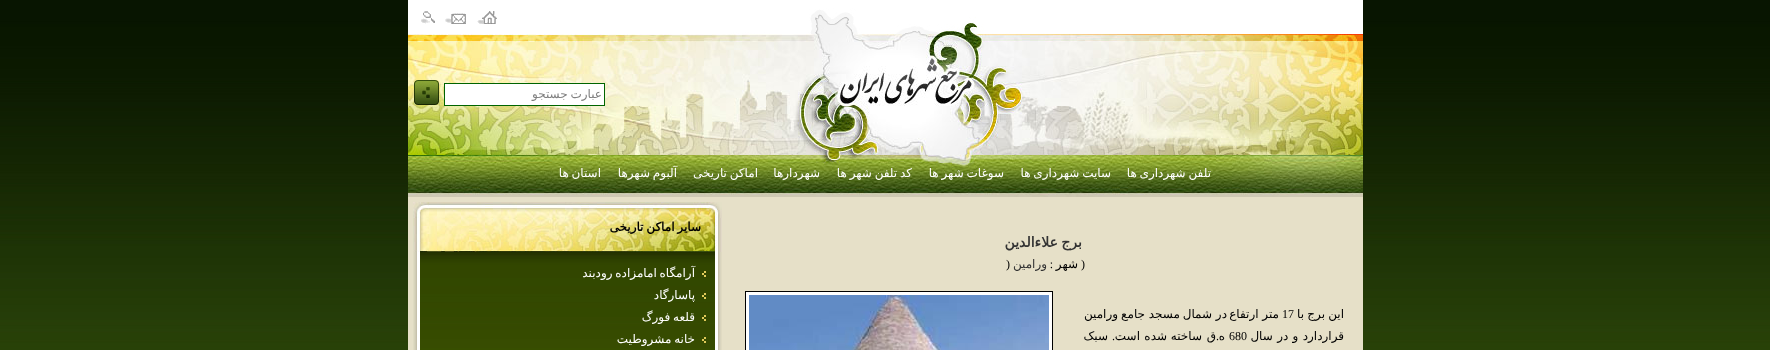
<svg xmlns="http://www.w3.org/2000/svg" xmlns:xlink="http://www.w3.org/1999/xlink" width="1770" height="350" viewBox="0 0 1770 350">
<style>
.cls-1{font:12px DejaVu Sans;direction:rtl;fill:#808080}
.cls-2{font:12px DejaVu Sans;direction:rtl;fill:#ffffff}
.cls-3{font:bold 14px DejaVu Sans;direction:rtl;fill:#333333}
.cls-4{font:12px Liberation Serif;direction:rtl;fill:#000000}
.cls-5{font:12px DejaVu Sans;direction:rtl;fill:#000000}
.cls-6{font:12px DejaVu Sans;direction:rtl;fill:#333333}
.cls-7{font:12px Liberation Serif;fill:#000000}
.cls-8{font:bold 12px DejaVu Sans;direction:rtl;fill:#000000}
</style>
<rect width="100%" height="100%" fill="#ffffff"/>
<image xlink:href="image0.png" x="0" y="0" width="1770" height="350"/>
<rect fill="#ffffff" x="1045" y="0" width="318" height="34"/>
<image xlink:href="image1.png" x="726" y="0" width="319" height="34"/>
<rect fill="#ffffff" x="408" y="0" width="318" height="34"/>
<image xlink:href="image2.png" x="477" y="11" width="20" height="13"/>
<image xlink:href="image3.png" x="445" y="13" width="21" height="11"/>
<image xlink:href="image4.png" x="421" y="11" width="14" height="13"/>
<image xlink:href="image5.png" x="1045" y="34" width="318" height="121"/>
<image xlink:href="image6.png" x="726" y="34" width="319" height="121"/>
<image xlink:href="image7.png" x="408" y="34" width="318" height="121"/>
<rect fill="#ffffff" stroke="#006400" x="444.5" y="83.5" width="160" height="22"/>
<image xlink:href="image8.png" x="414" y="80" width="25" height="25"/>
<image xlink:href="image9.png" x="408" y="155" width="955" height="42"/>
<rect fill="#e6e0c8" x="408" y="197" width="955" height="153"/>
<rect fill="#ffffff" x="746" y="292" width="306" height="58"/>
<rect fill="#000000" x="745" y="291" width="308" height="1"/>
<rect fill="#000000" x="1052" y="291" width="1" height="59"/>
<rect fill="#000000" x="745" y="291" width="1" height="59"/>
<image xlink:href="image10.png" x="749" y="295" width="300" height="55"/>
<image xlink:href="image11.png" x="413" y="202" width="309" height="50"/>
<image xlink:href="image12.png" x="715" y="252" width="7" height="98"/>
<image xlink:href="image13.png" x="420" y="252" width="295" height="98"/>
<image xlink:href="image14.png" x="702" y="271" width="4" height="6"/>
<image xlink:href="image15.png" x="702" y="293" width="4" height="6"/>
<image xlink:href="image16.png" x="702" y="315" width="4" height="6"/>
<image xlink:href="image17.png" x="702" y="337" width="4" height="6"/>
<image xlink:href="image18.png" x="413" y="252" width="7" height="98"/>
<text class="cls-1" x="602" y="98" word-spacing="-1">عبارت جستجو</text>
<text class="cls-2" x="1211" y="177" word-spacing="-1">تلفن شهرداری ها</text>
<text class="cls-2" x="1111" y="177" word-spacing="-1">سایت شهرداری ها</text>
<text class="cls-2" x="1004" y="177" word-spacing="-1">سوغات شهر ها</text>
<text class="cls-2" x="912" y="177" word-spacing="-1">کد تلفن شهر ها</text>
<text class="cls-2" x="820" y="177">شهردارها</text>
<text class="cls-2" x="758" y="177" word-spacing="-1">اماکن تاریخی</text>
<text class="cls-2" x="677" y="177" word-spacing="-1">آلبوم شهرها</text>
<text class="cls-2" x="601" y="177" word-spacing="-1">استان ها</text>
<text class="cls-3" x="1082" y="247" word-spacing="-1">برج علاءالدين</text>
<text class="cls-4" x="1085" y="268">(</text>
<text class="cls-5" x="1078" y="268">شهر</text>
<text class="cls-4" x="1053" y="268">:</text>
<text class="cls-6" x="1047" y="268">ورامين</text>
<text class="cls-7" x="1006" y="268">)</text>
<text class="cls-5" x="1344" y="318">این</text>
<text class="cls-5" x="1325" y="318">برج</text>
<text class="cls-5" x="1304" y="318">با</text>
<text class="cls-7" x="1282" y="318">17</text>
<text class="cls-5" x="1279" y="318">متر ارتفاع</text>
<text class="cls-5" x="1227" y="318">در شمال</text>
<text class="cls-5" x="1180" y="318">مسجد جامع</text>
<text class="cls-5" x="1118" y="318">ورامین</text>
<text class="cls-5" x="1344" y="340" word-spacing="0.5">قراردارد و در سال</text>
<text class="cls-7" x="1229" y="340">680</text>
<text class="cls-5" x="1225" y="340">ه</text>
<text class="cls-4" x="1219" y="340">.</text>
<text class="cls-5" x="1216" y="340">ق</text>
<text class="cls-5" x="1202" y="340">ساخته</text>
<text class="cls-5" x="1167" y="340">شده</text>
<text class="cls-5" x="1140" y="340">است</text>
<text class="cls-4" x="1115" y="340">‌.</text>
<text class="cls-5" x="1108" y="340">سبک</text>
<text class="cls-8" x="701" y="231" word-spacing="-1">سایر اماکن تاریخی</text>
<text class="cls-2"><tspan x="695" y="277" word-spacing="-1">آرامگاه امامزاده رودبند</tspan><tspan x="695" y="299">پاسارگاد</tspan><tspan x="695" y="321" word-spacing="-1">قلعه فورگ</tspan><tspan x="695" y="343" word-spacing="-1">خانه مشروطيت</tspan></text>
</svg>
